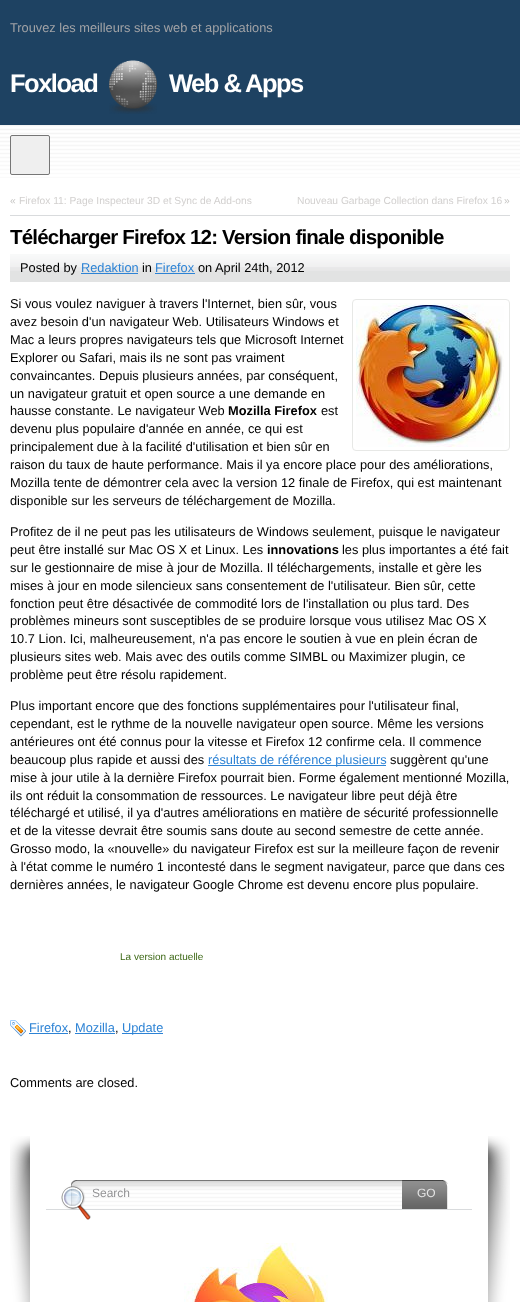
<svg xmlns="http://www.w3.org/2000/svg" xmlns:xlink="http://www.w3.org/1999/xlink" width="520" height="1302" viewBox="0 0 520 1302">
<style>
.cls-1{font:12.8px Liberation Sans;fill:#a2a3a6}
.cls-2{font:bold 25.5px Liberation Sans;letter-spacing:-1.5px;fill:#ffffff}
.cls-3{font:10.25px Liberation Sans;fill:#c4c3c1}
.cls-4{font:10.25px Liberation Sans;fill:#d2d0cf}
.cls-5{font:bold 20.5px Liberation Sans;letter-spacing:-0.8px;fill:#000000}
.cls-6{font:12.8px Liberation Sans;fill:#000000}
.cls-7{font:12.8px Liberation Sans;fill:#2d83d5}
.cls-8{font:bold 12.8px Liberation Sans;fill:#000000}
.cls-9{font:10px Liberation Sans;fill:#3c6815}
.cls-10{font:12px Liberation Sans;fill:#949496}
.cls-11{font:12px Liberation Sans;fill:#e5e5e5}
</style>
<rect width="100%" height="100%" fill="#ffffff"/>
<image xlink:href="image0.png" x="0" y="125" width="520" height="53"/>
<rect fill="#1e4262" x="0" y="0" width="520" height="125"/>
<image xlink:href="image1.png" x="109" y="60" width="48" height="54"/>
<rect fill="#efefef" stroke="#767676" x="10.5" y="135.5" width="39" height="39" rx="1.5"/>
<rect fill="#d9dbdd" x="10" y="215" width="500" height="1"/>
<rect fill="#e2e3e3" x="10" y="271" width="500" height="11"/>
<image xlink:href="image2.png" x="10" y="254" width="500" height="17"/>
<rect fill="#2d83d5" x="81" y="273" width="57" height="1"/>
<rect fill="#2d83d5" x="155" y="273" width="40" height="1"/>
<rect fill="none" stroke="#e7e8e6" x="352.5" y="299.5" width="157" height="151" rx="3.5"/>
<image xlink:href="image3.png" x="356" y="303" width="148" height="144"/>
<rect fill="#2d83d5" x="208" y="765" width="178" height="1"/>
<image xlink:href="image4.png" x="10" y="1020" width="16" height="17"/>
<rect fill="#2d83d5" x="29" y="1033" width="39" height="1"/>
<rect fill="#2d83d5" x="75" y="1033" width="40" height="1"/>
<rect fill="#2d83d5" x="122" y="1033" width="41" height="1"/>
<image xlink:href="image5.png" x="10" y="1136" width="20" height="166"/>
<image xlink:href="image6.png" x="488" y="1136" width="22" height="166"/>
<image xlink:href="image7.png" x="46" y="1180" width="426" height="40"/>
<image xlink:href="image8.png" x="402" y="1180" width="70" height="29"/>
<image xlink:href="image9.png" x="184" y="1243" width="144" height="59"/>
<text class="cls-1" x="10" y="32">Trouvez les meilleurs sites web et applications</text>
<text class="cls-2" x="10" y="92">Foxload</text>
<text class="cls-2" x="169" y="92">Web &amp; Apps</text>
<text class="cls-3" x="10" y="204">«</text>
<text class="cls-4" x="19" y="204">Firefox 11: Page Inspecteur 3D et Sync de Add-ons</text>
<text class="cls-4" x="297" y="204">Nouveau Garbage Collection dans Firefox 16</text>
<text class="cls-3" x="504" y="204">»</text>
<text class="cls-5" x="10" y="244">Télécharger Firefox 12: Version finale disponible</text>
<text class="cls-6" x="20" y="272">Posted by</text>
<text class="cls-7" x="81" y="272">Redaktion</text>
<text class="cls-6" x="142" y="272">in</text>
<text class="cls-7" x="155" y="272">Firefox</text>
<text class="cls-6" x="198" y="272">on</text>
<text class="cls-6" x="215" y="272">April 24th, 2012</text>
<text class="cls-6"><tspan x="10" y="308">Si vous voulez naviguer à travers l'Internet, bien sûr, vous</tspan><tspan x="10" y="326">avez besoin d'un navigateur Web. Utilisateurs Windows et</tspan><tspan x="10" y="344">Mac a leurs propres navigateurs tels que Microsoft Internet</tspan><tspan x="10" y="362">Explorer ou Safari, mais ils ne sont pas vraiment</tspan><tspan x="10" y="380">convaincantes. Depuis plusieurs années, par conséquent,</tspan><tspan x="10" y="398">un navigateur gratuit et open source a une demande en</tspan><tspan x="10" y="415">hausse constante. Le navigateur Web</tspan></text>
<text class="cls-8" x="228" y="415">Mozilla Firefox</text>
<text class="cls-6" x="321" y="415">est</text>
<text class="cls-6"><tspan x="10" y="433">devenu plus populaire d'année en année, ce qui est</tspan><tspan x="10" y="451">principalement due à la facilité d'utilisation et bien sûr en</tspan><tspan x="10" y="469">raison du taux de haute performance. Mais il ya encore place pour des améliorations,</tspan><tspan x="10" y="487">Mozilla tente de démontrer cela avec la version 12 finale de Firefox, qui est maintenant</tspan><tspan x="10" y="505">disponible sur les serveurs de téléchargement de Mozilla.</tspan></text>
<text class="cls-6"><tspan x="10" y="536">Profitez de il ne peut pas les utilisateurs de Windows seulement, puisque le navigateur</tspan><tspan x="10" y="554">peut être installé sur Mac OS X et Linux. Les</tspan></text>
<text class="cls-8" x="267" y="554">innovations</text>
<text class="cls-6" x="342" y="554">les plus importantes a été fait</text>
<text class="cls-6"><tspan x="10" y="572">sur le gestionnaire de mise à jour de Mozilla. Il téléchargements, installe et gère les</tspan><tspan x="10" y="590">mises à jour en mode silencieux sans consentement de l'utilisateur. Bien sûr, cette</tspan><tspan x="10" y="608">fonction peut être désactivée de commodité lors de l'installation ou plus tard. Des</tspan><tspan x="10" y="625">problèmes mineurs sont susceptibles de se produire lorsque vous utilisez Mac OS X</tspan><tspan x="10" y="643">10.7 Lion. Ici, malheureusement, n'a pas encore le soutien à vue en plein écran de</tspan><tspan x="10" y="661">plusieurs sites web. Mais avec des outils comme SIMBL ou Maximizer plugin, ce</tspan><tspan x="10" y="679">problème peut être résolu rapidement.</tspan></text>
<text class="cls-6"><tspan x="10" y="710">Plus important encore que des fonctions supplémentaires pour l'utilisateur final,</tspan><tspan x="10" y="728">cependant, est le rythme de la nouvelle navigateur open source. Même les versions</tspan><tspan x="10" y="746">antérieures ont été connus pour la vitesse et Firefox 12 confirme cela. Il commence</tspan><tspan x="10" y="764">beaucoup plus rapide et aussi des</tspan></text>
<text class="cls-7" x="208" y="764">résultats de référence plusieurs</text>
<text class="cls-6" x="390" y="764">suggèrent qu'une</text>
<text class="cls-6"><tspan x="10" y="782">mise à jour utile à la dernière Firefox pourrait bien. Forme également mentionné Mozilla,</tspan><tspan x="10" y="800">ils ont réduit la consommation de ressources. Le navigateur libre peut déjà être</tspan><tspan x="10" y="817">téléchargé et utilisé, il ya d'autres améliorations en matière de sécurité professionnelle</tspan><tspan x="10" y="835">et de la vitesse devrait être soumis sans doute au second semestre de cette année.</tspan><tspan x="10" y="853">Grosso modo, la «nouvelle» du navigateur Firefox est sur la meilleure façon de revenir</tspan><tspan x="10" y="871">à l'état comme le numéro 1 incontesté dans le segment navigateur, parce que dans ces</tspan><tspan x="10" y="889">dernières années, le navigateur Google Chrome est devenu encore plus populaire.</tspan></text>
<text class="cls-9" x="120" y="960">La version actuelle</text>
<text class="cls-7" x="29" y="1032">Firefox</text>
<text class="cls-6" x="68" y="1032">,</text>
<text class="cls-7" x="75" y="1032">Mozilla</text>
<text class="cls-6" x="115" y="1032">,</text>
<text class="cls-7" x="122" y="1032">Update</text>
<text class="cls-6" x="10" y="1087">Comments are closed.</text>
<text class="cls-10" x="92" y="1197">Search</text>
<text class="cls-11" x="417" y="1197">GO</text>
</svg>
